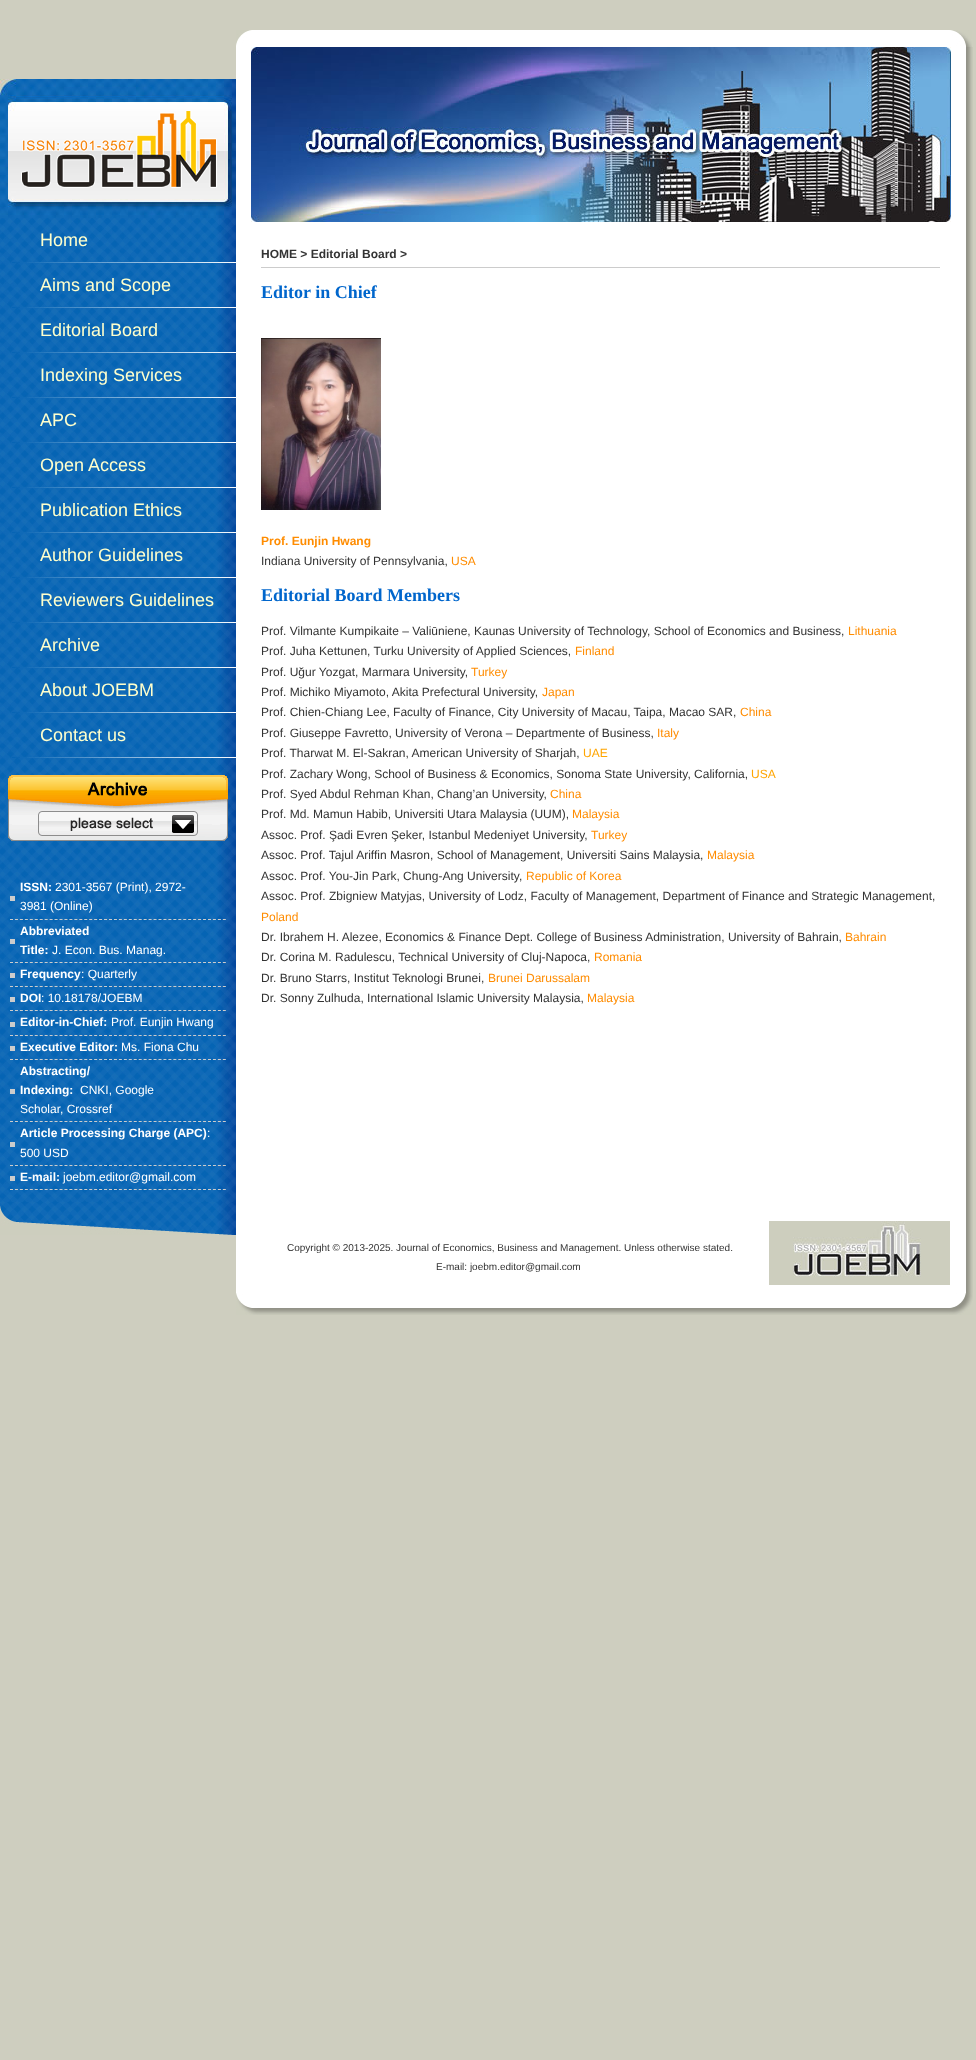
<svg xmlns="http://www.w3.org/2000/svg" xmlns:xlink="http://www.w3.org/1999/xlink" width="976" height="2060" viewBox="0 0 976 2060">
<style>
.cls-1{font:18px Liberation Sans;fill:#ffffcc}
.cls-2{font:bold 12px Liberation Sans;fill:#ffffff}
.cls-3{font:12px Liberation Sans;fill:#ffffff}
.cls-4{font:bold 12px Liberation Sans;fill:#333333}
.cls-5{font:bold 18px Liberation Serif;fill:#0066cc}
.cls-6{font:bold 12px Liberation Sans;fill:#ff8c00}
.cls-7{font:12px Liberation Sans;fill:#333333}
.cls-8{font:12px Liberation Sans;fill:#ff8c00}
.cls-9{font:12px Liberation Sans;fill:#ffa500}
.cls-10{font:10px Liberation Sans;fill:#333333}
</style>
<rect width="100%" height="100%" fill="#cecebf"/>
<image xlink:href="image0.png" x="0" y="79" width="236" height="139"/>
<image xlink:href="image1.png" x="21" y="111" width="196" height="77"/>
<image xlink:href="image2.png" x="0" y="218" width="236" height="984"/>
<image xlink:href="image3.png" x="12" y="262" width="224" height="1"/>
<image xlink:href="image3.png" x="12" y="307" width="224" height="1"/>
<image xlink:href="image3.png" x="12" y="352" width="224" height="1"/>
<image xlink:href="image3.png" x="12" y="397" width="224" height="1"/>
<image xlink:href="image3.png" x="12" y="442" width="224" height="1"/>
<image xlink:href="image3.png" x="12" y="487" width="224" height="1"/>
<image xlink:href="image3.png" x="12" y="532" width="224" height="1"/>
<image xlink:href="image3.png" x="12" y="577" width="224" height="1"/>
<image xlink:href="image3.png" x="12" y="622" width="224" height="1"/>
<image xlink:href="image3.png" x="12" y="667" width="224" height="1"/>
<image xlink:href="image3.png" x="12" y="712" width="224" height="1"/>
<image xlink:href="image3.png" x="12" y="757" width="224" height="1"/>
<image xlink:href="image4.png" x="8" y="775" width="220" height="66"/>
<rect fill="#cccccc" x="10" y="896" width="5" height="5"/>
<path fill="none" stroke="#cccccc" stroke-dasharray="3 1.95" d="M10 919.5H226"/>
<rect fill="#cccccc" x="10" y="939" width="5" height="5"/>
<path fill="none" stroke="#cccccc" stroke-dasharray="3 1.95" d="M10 962.5H226"/>
<rect fill="#cccccc" x="10" y="973" width="5" height="5"/>
<path fill="none" stroke="#cccccc" stroke-dasharray="3 1.95" d="M10 986.5H226"/>
<rect fill="#cccccc" x="10" y="997" width="5" height="5"/>
<path fill="none" stroke="#cccccc" stroke-dasharray="3 1.95" d="M10 1010.5H226"/>
<rect fill="#cccccc" x="10" y="1022" width="5" height="5"/>
<path fill="none" stroke="#cccccc" stroke-dasharray="3 1.95" d="M10 1035.5H226"/>
<rect fill="#cccccc" x="10" y="1046" width="5" height="5"/>
<path fill="none" stroke="#cccccc" stroke-dasharray="3 1.95" d="M10 1059.5H226"/>
<rect fill="#cccccc" x="10" y="1089" width="5" height="5"/>
<path fill="none" stroke="#cccccc" stroke-dasharray="3 1.95" d="M10 1121.5H226"/>
<rect fill="#cccccc" x="10" y="1142" width="5" height="5"/>
<path fill="none" stroke="#cccccc" stroke-dasharray="3 1.95" d="M10 1165.5H226"/>
<rect fill="#cccccc" x="10" y="1176" width="5" height="5"/>
<path fill="none" stroke="#cccccc" stroke-dasharray="3 1.95" d="M10 1189.5H226"/>
<image xlink:href="image5.png" x="0" y="1202" width="236" height="33"/>
<image xlink:href="image6.png" x="236" y="30" width="736" height="17"/>
<image xlink:href="image7.png" x="236" y="47" width="737" height="1246"/>
<image xlink:href="image8.png" x="251" y="47" width="700" height="175"/>
<rect fill="#cccccc" x="261" y="267" width="679" height="1"/>
<image xlink:href="image9.png" x="261" y="338" width="120" height="172"/>
<image xlink:href="image10.png" x="769" y="1221" width="181" height="64"/>
<image xlink:href="image11.png" x="236" y="1293" width="737" height="22"/>
<text class="cls-1" x="40" y="246">Home</text>
<text class="cls-1" x="40" y="291">Aims and Scope</text>
<text class="cls-1" x="40" y="336">Editorial Board</text>
<text class="cls-1" x="40" y="381">Indexing Services</text>
<text class="cls-1" x="40" y="426">APC</text>
<text class="cls-1" x="40" y="471">Open Access</text>
<text class="cls-1" x="40" y="516">Publication Ethics</text>
<text class="cls-1" x="40" y="561">Author Guidelines</text>
<text class="cls-1" x="40" y="606">Reviewers Guidelines</text>
<text class="cls-1" x="40" y="651">Archive</text>
<text class="cls-1" x="40" y="696">About JOEBM</text>
<text class="cls-1" x="40" y="741">Contact us</text>
<text class="cls-2" x="20" y="891">ISSN:</text>
<text class="cls-3" x="55" y="891">2301-3567 (Print), 2972-</text>
<text class="cls-3" x="20" y="910">3981 (Online)</text>
<text class="cls-2"><tspan x="20" y="935">Abbreviated</tspan><tspan x="20" y="954">Title:</tspan></text>
<text class="cls-3" x="52" y="954">J. Econ. Bus. Manag.</text>
<text class="cls-2" x="20" y="978">Frequency</text>
<text class="cls-3" x="81" y="978">: Quarterly</text>
<text class="cls-2" x="20" y="1002">DOI</text>
<text class="cls-3" x="41" y="1002">: 10.18178/JOEBM</text>
<text class="cls-2" x="20" y="1026">Editor-in-Chief:</text>
<text class="cls-3" x="111" y="1026">Prof. Eunjin Hwang</text>
<text class="cls-2" x="20" y="1051">Executive Editor:</text>
<text class="cls-3" x="121" y="1051">Ms. Fiona Chu</text>
<text class="cls-2"><tspan x="20" y="1075">Abstracting/</tspan><tspan x="20" y="1094">Indexing:</tspan></text>
<text class="cls-3" x="80" y="1094">CNKI, Google</text>
<text class="cls-3" x="20" y="1113">Scholar</text>
<text class="cls-3" x="60" y="1113">, Crossref</text>
<text class="cls-2" x="20" y="1137">Article Processing Charge (APC)</text>
<text class="cls-3" x="207" y="1137">:</text>
<text class="cls-3" x="20" y="1157">500 USD</text>
<text class="cls-2" x="20" y="1181">E-mail:</text>
<text class="cls-3" x="63" y="1181">joebm.editor@gmail.com</text>
<text class="cls-4" x="261" y="258">HOME &gt; Editorial Board &gt;</text>
<text class="cls-5" x="261" y="298">Editor in Chief</text>
<text class="cls-6" x="261" y="545">Prof. Eunjin Hwang</text>
<text class="cls-7" x="261" y="565">Indiana University of Pennsylvania,</text>
<text class="cls-8" x="451" y="565">USA</text>
<text class="cls-5" x="261" y="601">Editorial Board Members</text>
<text class="cls-7" x="261" y="635">Prof. Vilmante Kumpikaite – Valiūniene, Kaunas University of Technology, School of Economics and Business,</text>
<text class="cls-8" x="848" y="635">Lithuania</text>
<text class="cls-7" x="261" y="655">Prof. Juha Kettunen, Turku University of Applied Sciences,</text>
<text class="cls-8" x="575" y="655">Finland</text>
<text class="cls-7" x="261" y="676">Prof. Uğur Yozgat, Marmara University,</text>
<text class="cls-8" x="471" y="676">Turkey</text>
<text class="cls-7" x="261" y="696">Prof. Michiko Miyamoto, Akita Prefectural University,</text>
<text class="cls-8" x="542" y="696">Japan</text>
<text class="cls-7" x="261" y="716">Prof. Chien-Chiang Lee, Faculty of Finance, City University of Macau, Taipa, Macao SAR,</text>
<text class="cls-8" x="740" y="716">China</text>
<text class="cls-7" x="261" y="737">Prof. Giuseppe Favretto, University of Verona – Departmente of Business,</text>
<text class="cls-8" x="657" y="737">Italy</text>
<text class="cls-7" x="261" y="757">Prof. Tharwat M. El-Sakran, American University of Sharjah,</text>
<text class="cls-9" x="583" y="757">UAE</text>
<text class="cls-7" x="261" y="778">Prof. Zachary Wong, School of Business &amp; Economics, Sonoma State University, California,</text>
<text class="cls-9" x="751" y="778">USA</text>
<text class="cls-7" x="261" y="798">Prof. Syed Abdul Rehman Khan, Chang’an University,</text>
<text class="cls-8" x="550" y="798">China</text>
<text class="cls-7" x="261" y="818">Prof. Md. Mamun Habib, Universiti Utara Malaysia (UUM),</text>
<text class="cls-8" x="572" y="818">Malaysia</text>
<text class="cls-7" x="261" y="839">Assoc. Prof. Şadi Evren Şeker, Istanbul Medeniyet University,</text>
<text class="cls-8" x="591" y="839">Turkey</text>
<text class="cls-7" x="261" y="859">Assoc. Prof. Tajul Ariffin Masron, School of Management, Universiti Sains Malaysia,</text>
<text class="cls-8" x="707" y="859">Malaysia</text>
<text class="cls-7" x="261" y="880">Assoc. Prof. You-Jin Park, Chung-Ang University,</text>
<text class="cls-8" x="526" y="880">Republic of Korea</text>
<text class="cls-7" x="261" y="900">Assoc. Prof. Zbigniew Matyjas, University of Lodz, Faculty of Management, Department of Finance and Strategic Management,</text>
<text class="cls-8" x="261" y="921">Poland</text>
<text class="cls-7" x="261" y="941">Dr. Ibrahem H. Alezee, Economics &amp; Finance Dept. College of Business Administration, University of Bahrain,</text>
<text class="cls-8" x="845" y="941">Bahrain</text>
<text class="cls-7" x="261" y="961">Dr. Corina M. Radulescu, Technical University of Cluj-Napoca,</text>
<text class="cls-8" x="594" y="961">Romania</text>
<text class="cls-7" x="261" y="982">Dr. Bruno Starrs, Institut Teknologi Brunei,</text>
<text class="cls-8" x="488" y="982">Brunei Darussalam</text>
<text class="cls-7" x="261" y="1002">Dr. Sonny Zulhuda, International Islamic University Malaysia,</text>
<text class="cls-8" x="587" y="1002">Malaysia</text>
<text class="cls-10" x="287" y="1251">Copyright © 2013-2025. Journal of Economics, Business and Management. Unless otherwise stated.</text>
<text class="cls-10" x="436" y="1270">E-mail: joebm.editor@gmail.com</text>
</svg>
